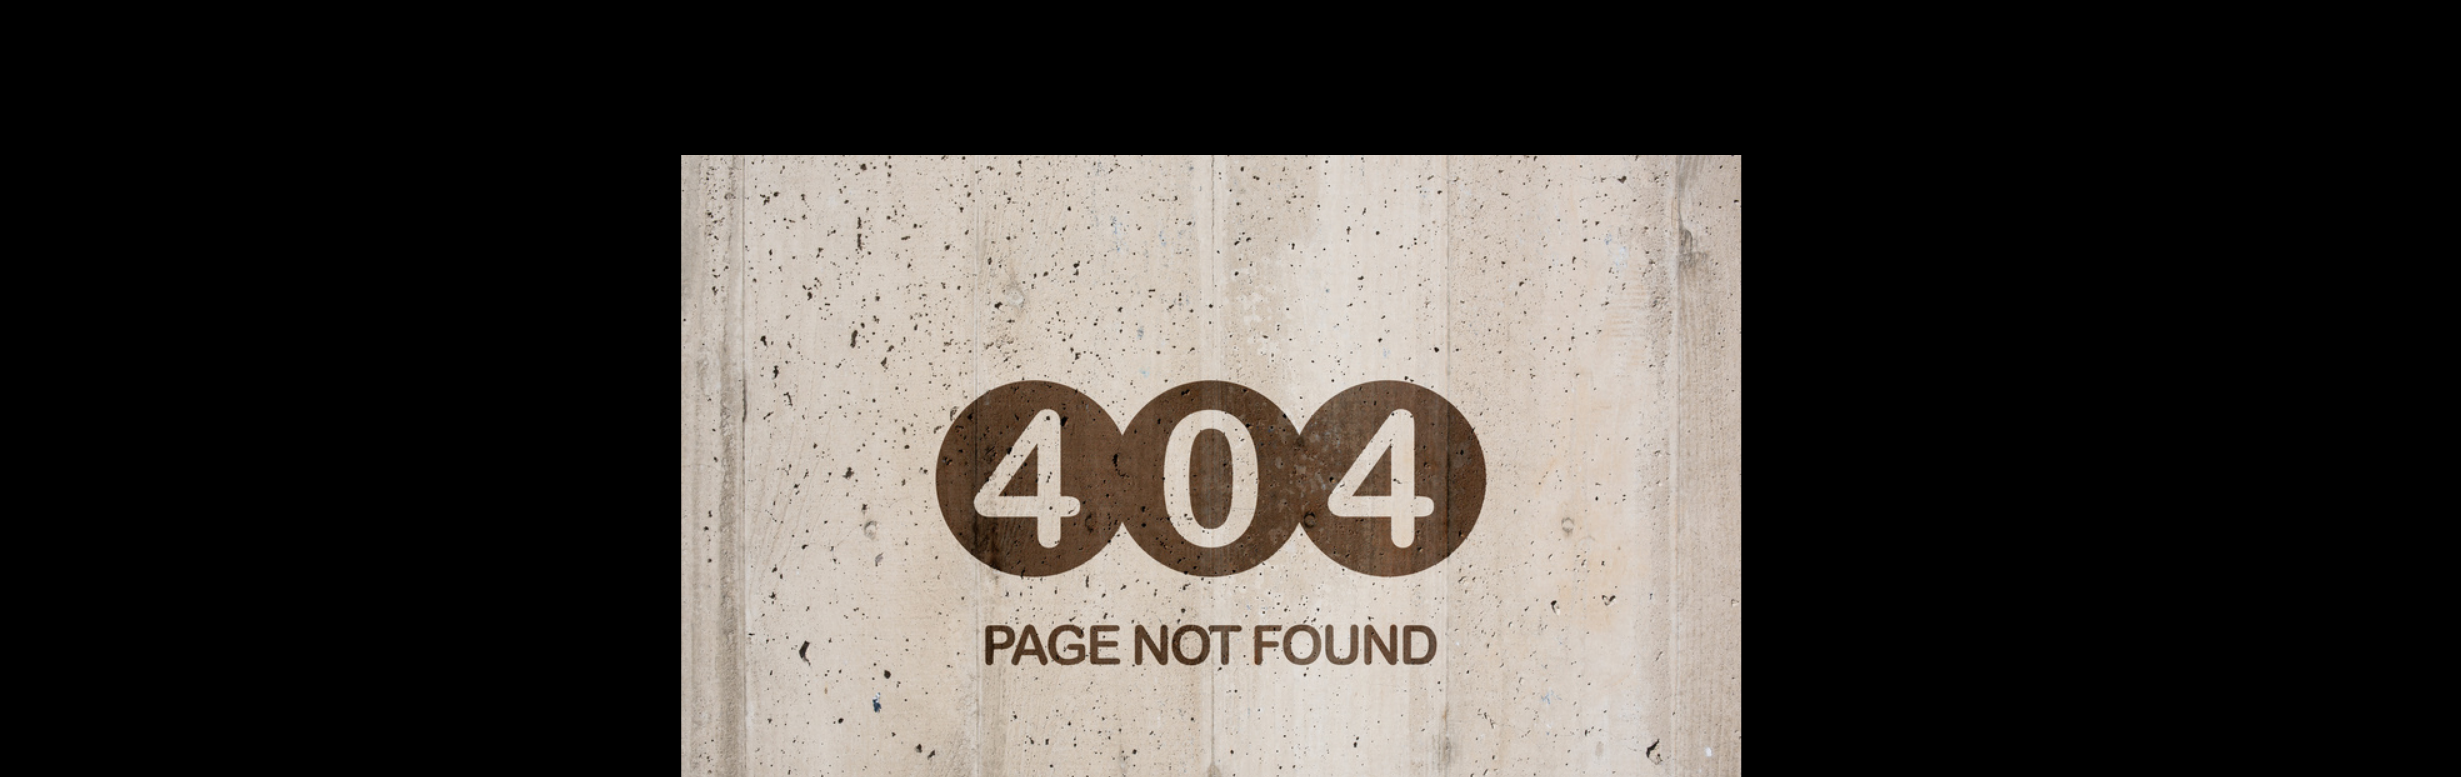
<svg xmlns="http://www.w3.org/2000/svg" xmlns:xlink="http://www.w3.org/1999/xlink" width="2461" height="777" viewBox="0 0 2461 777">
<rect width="100%" height="100%" fill="#000000"/>
<image xlink:href="image0.png" x="681" y="155" width="1061" height="622"/>
</svg>
